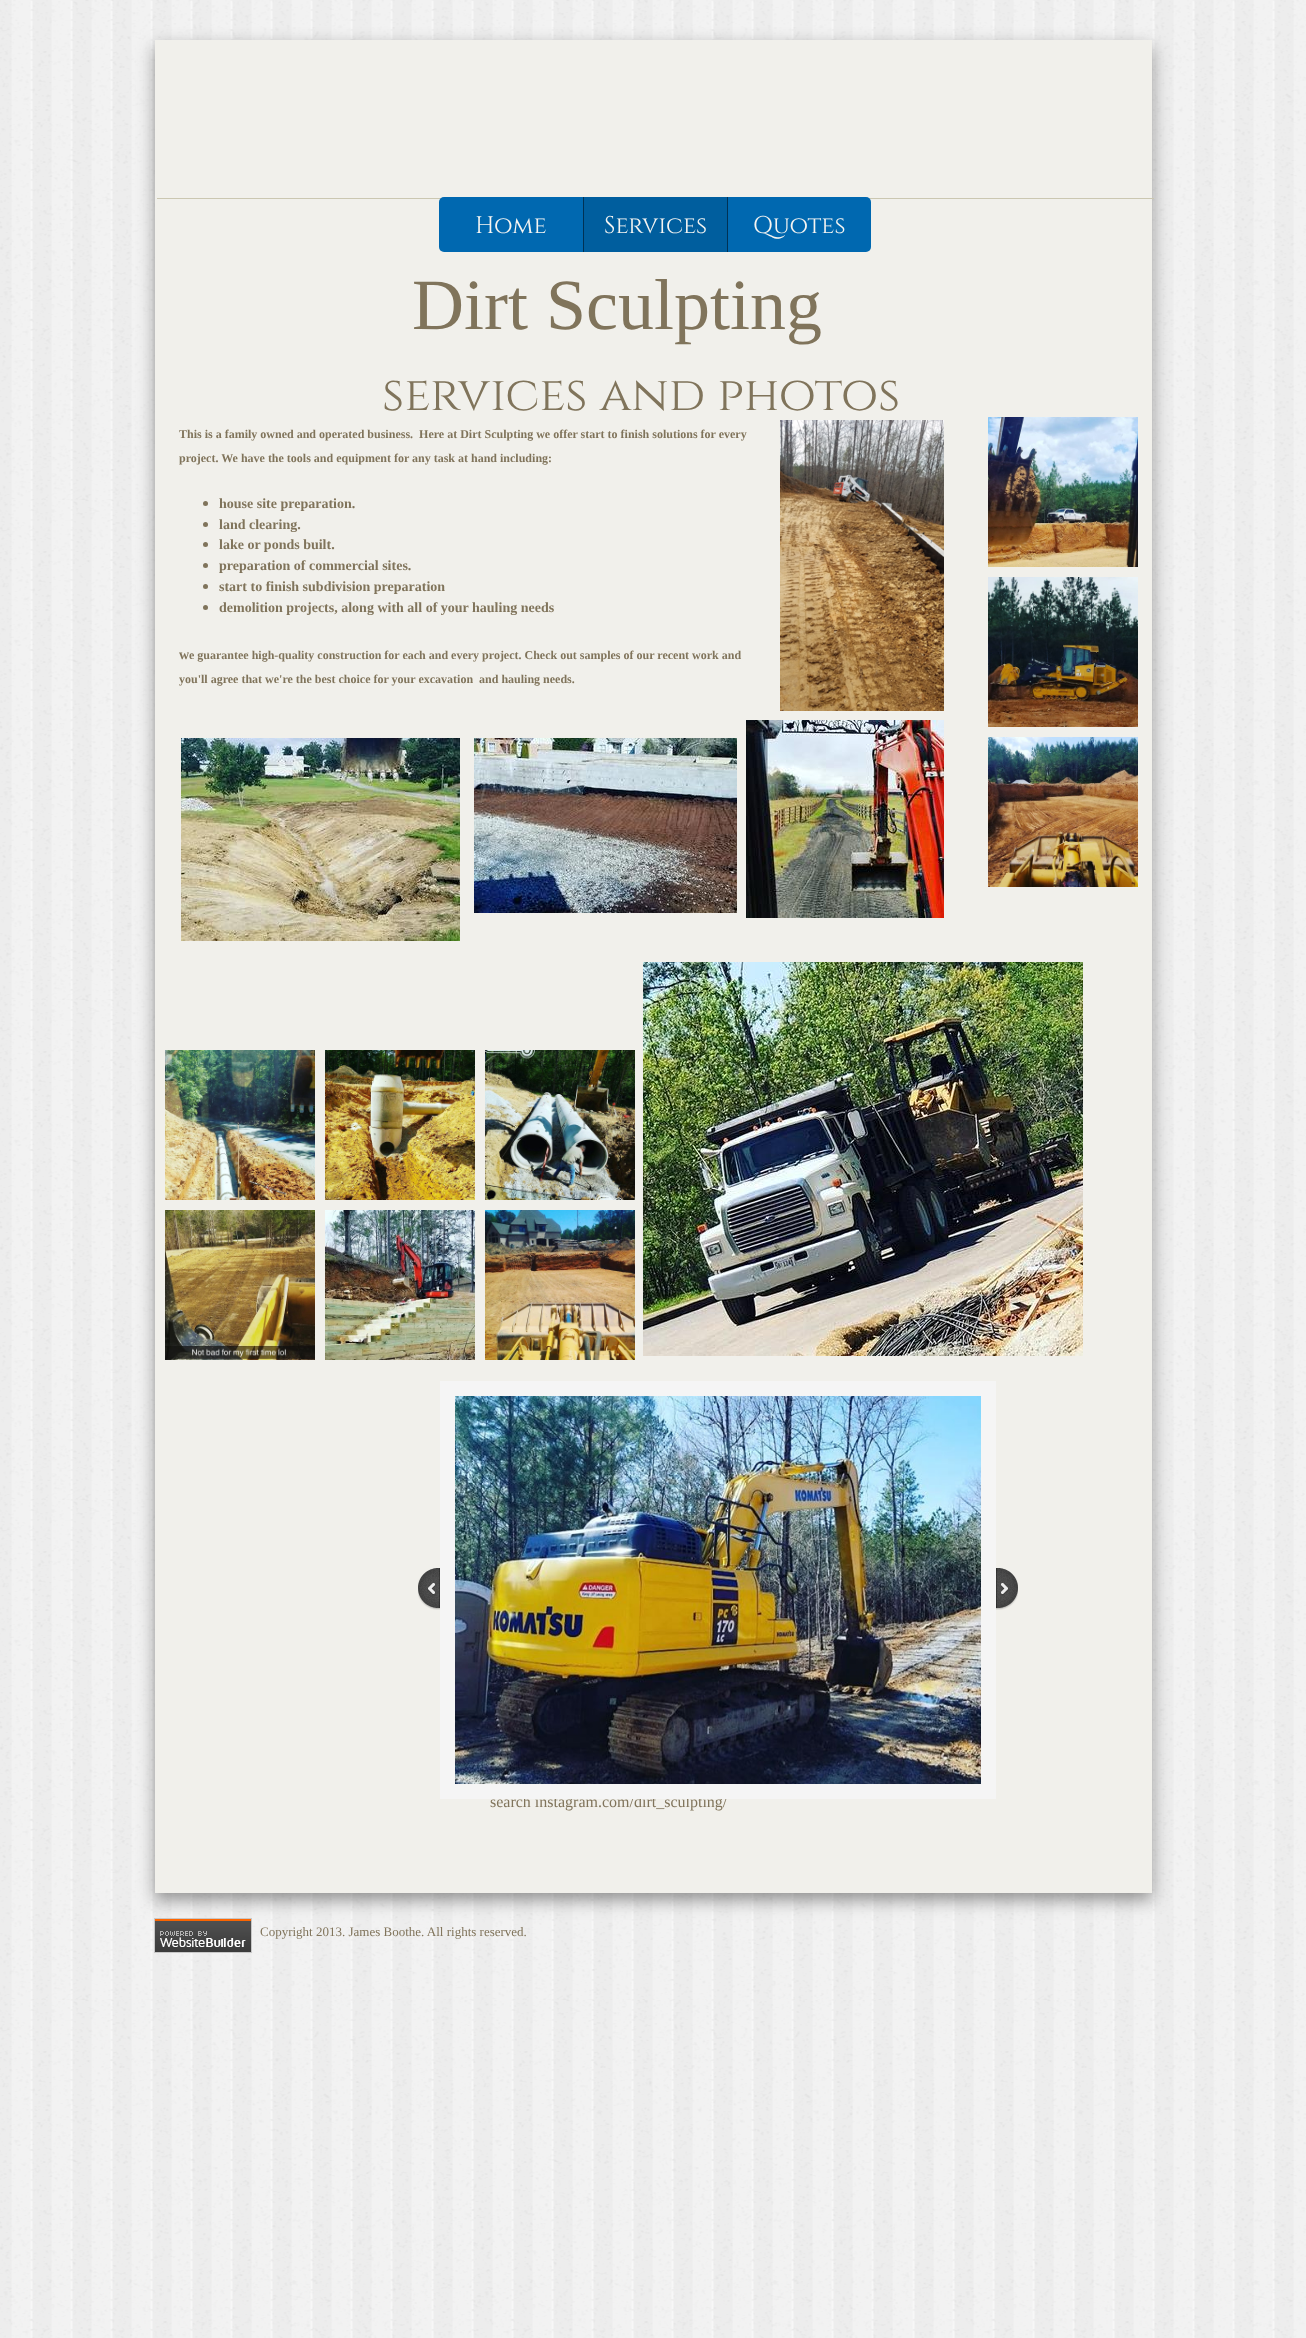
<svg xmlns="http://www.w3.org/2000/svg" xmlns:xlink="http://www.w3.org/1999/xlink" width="1306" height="2338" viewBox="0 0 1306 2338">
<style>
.cls-1{font:24px Cinzel;fill:#f6f5f2}
.cls-2{font:72px Liberation Serif;fill:#80745b}
.cls-3{font:48px Cinzel;fill:#80745b}
.cls-4{font:bold 12px Liberation Serif;fill:#80745b}
.cls-5{font:bold 14px Liberation Serif;fill:#80745b}
.cls-6{font:16px Liberation Serif;fill:#80745b}
.cls-7{font:13px Liberation Serif;fill:#80745b}
</style>
<rect width="100%" height="100%" fill="#ffffff"/>
<image xlink:href="image0.png" x="0" y="0" width="1306" height="2338"/>
<rect fill="#323232" fill-opacity="0.5" filter="blur(8.5px)" x="155" y="47" width="997" height="1853"/>
<rect fill="#f1f0eb" x="155" y="40" width="997" height="1853"/>
<rect fill="#cbc7b1" x="157" y="198" width="997" height="1"/>
<rect fill="#0068b0" x="439" y="197" width="432" height="55" rx="5"/>
<rect fill="#005e9e" x="584" y="197" width="143" height="55"/>
<rect fill="#003255" x="583" y="197" width="1" height="55"/>
<rect fill="#003255" x="727" y="197" width="1" height="55"/>
<circle fill="#80745b" cx="205.5" cy="503.5" r="2.5"/>
<circle fill="#80745b" cx="205.5" cy="524.5" r="2.5"/>
<circle fill="#80745b" cx="205.5" cy="544.5" r="2.5"/>
<circle fill="#80745b" cx="205.5" cy="565.5" r="2.5"/>
<circle fill="#80745b" cx="205.5" cy="586.5" r="2.5"/>
<circle fill="#80745b" cx="205.5" cy="607.5" r="2.5"/>
<image xlink:href="image1.png" x="780" y="420" width="164" height="291"/>
<image xlink:href="image2.png" x="988" y="417" width="150" height="150"/>
<image xlink:href="image3.png" x="988" y="577" width="150" height="150"/>
<image xlink:href="image4.png" x="988" y="737" width="150" height="150"/>
<image xlink:href="image5.png" x="181" y="738" width="279" height="203"/>
<image xlink:href="image6.png" x="474" y="738" width="263" height="175"/>
<image xlink:href="image7.png" x="746" y="720" width="198" height="198"/>
<image xlink:href="image8.png" x="165" y="1050" width="150" height="150"/>
<image xlink:href="image9.png" x="325" y="1050" width="150" height="150"/>
<image xlink:href="image10.png" x="485" y="1050" width="150" height="150"/>
<image xlink:href="image11.png" x="165" y="1210" width="150" height="150"/>
<image xlink:href="image12.png" x="325" y="1210" width="150" height="150"/>
<image xlink:href="image13.png" x="485" y="1210" width="150" height="150"/>
<image xlink:href="image14.png" x="643" y="962" width="440" height="394"/>
<image xlink:href="image15.png" x="418" y="1568" width="22" height="42"/>
<image xlink:href="image17.png" x="996" y="1568" width="22" height="42"/>
<image xlink:href="image18.png" x="154" y="1918" width="98" height="35"/>
<text class="cls-1" x="475" y="233">Home</text>
<text class="cls-1" x="604" y="233">Services</text>
<text class="cls-1" x="753" y="233">Quotes</text>
<text class="cls-2" x="412" y="329">Dirt Sculpting</text>
<text class="cls-3" x="382" y="410">services and photos</text>
<text class="cls-4" xml:space="preserve" x="179" y="438">This is a family owned and operated business.  Here at Dirt Sculpting we offer start to finish solutions for every</text>
<text class="cls-4" x="179" y="462">project. We have the tools and equipment for any task at hand including:</text>
<text class="cls-5"><tspan x="219" y="508">house site preparation.</tspan><tspan x="219" y="529">land clearing.</tspan><tspan x="219" y="549">lake or ponds built.</tspan><tspan x="219" y="570">preparation of commercial sites.</tspan><tspan x="219" y="591">start to finish subdivision preparation</tspan><tspan x="219" y="612">demolition projects, along with all of your hauling needs</tspan></text>
<text class="cls-5" x="179" y="659">w</text>
<text class="cls-4" x="189" y="659">e guarantee high-quality construction for each and every project. Check out samples of our recent work and</text>
<text class="cls-4" xml:space="preserve" x="179" y="683">you'll agree that we're the best choice for your excavation  and hauling needs.</text>
<text class="cls-6" x="490" y="1807">search instagram.com/dirt_sculpting/</text>
<rect fill="none" stroke="#f5f5f5" stroke-width="15" x="447.5" y="1388.5" width="541" height="403"/>
<image xlink:href="image16.png" x="455" y="1396" width="526" height="388"/>
<text class="cls-7" x="260" y="1936">Copyright 2013. James Boothe. All rights reserved.</text>
</svg>
